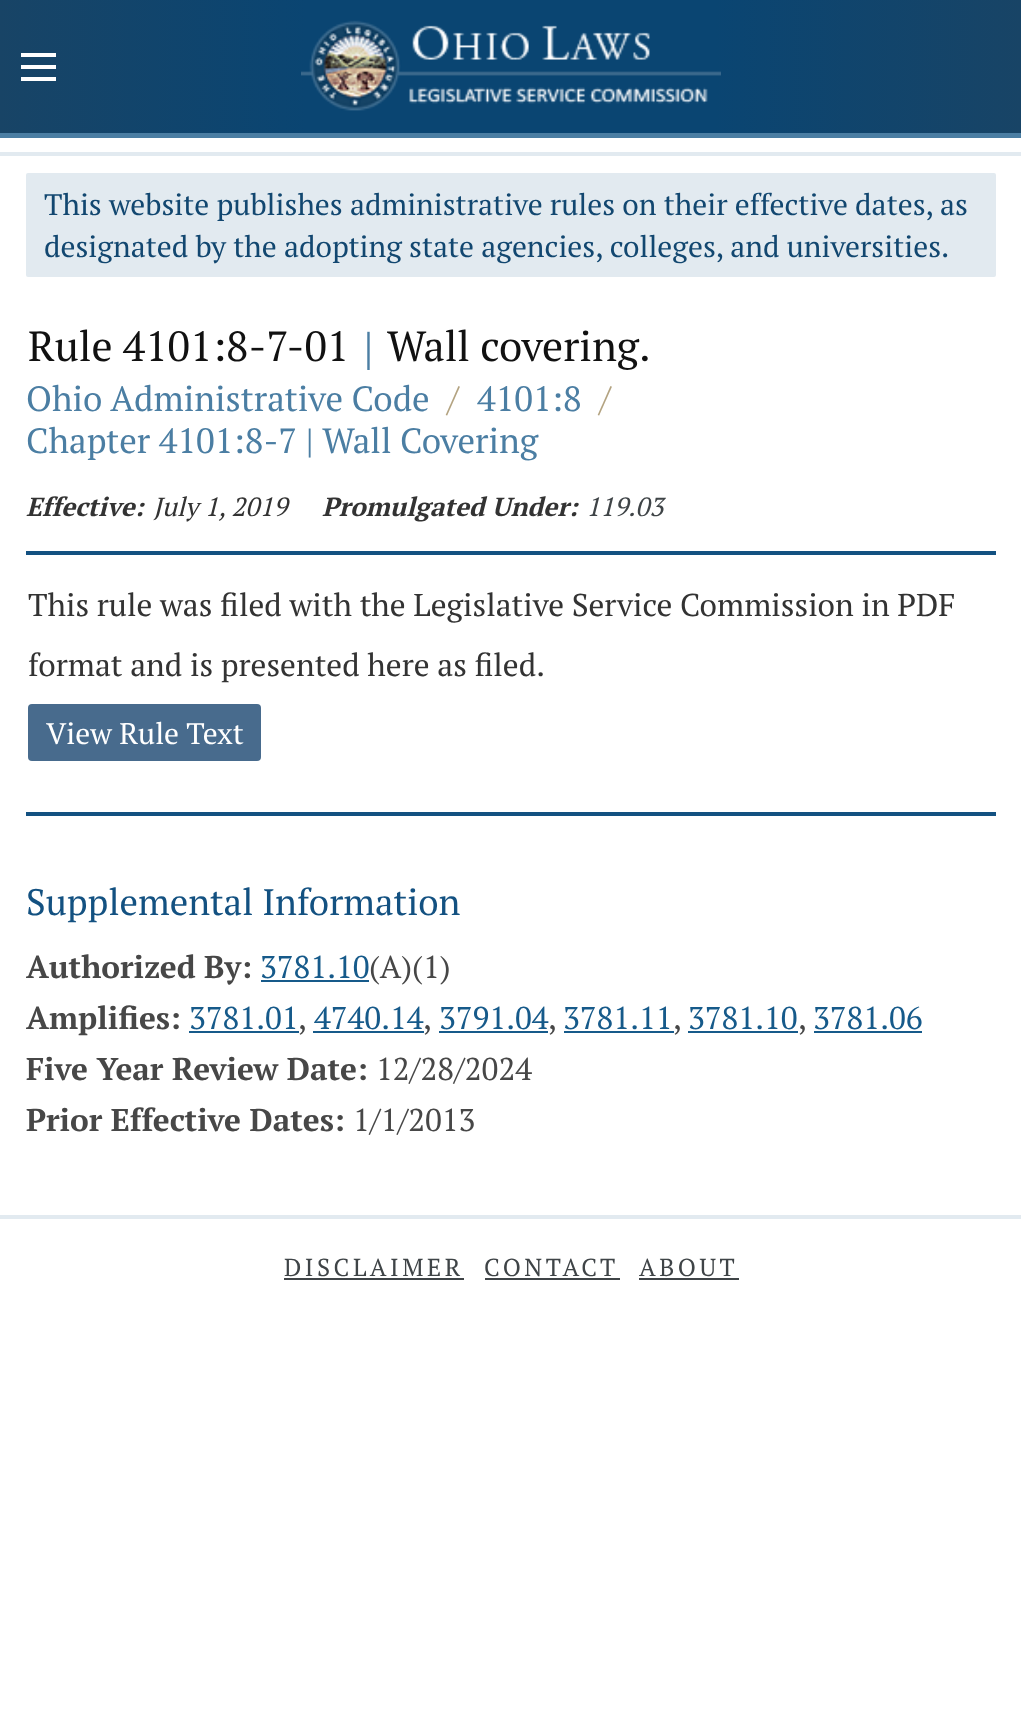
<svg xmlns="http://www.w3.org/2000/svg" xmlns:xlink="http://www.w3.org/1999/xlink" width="1021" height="1714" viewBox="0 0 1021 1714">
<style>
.cls-1{font:29.75px PT Serif;fill:#124770}
.cls-2{font:42px PT Serif;fill:#111111}
.cls-3{font:46px PT Serif;fill:#4b7ea3}
.cls-4{font:35px PT Serif;fill:#4b7ea3}
.cls-5{font:35px PT Serif;fill:#b3a381}
.cls-6{font:italic bold 26.25px PT Serif;fill:#333333}
.cls-7{font:italic 26.25px PT Serif;fill:#333333}
.cls-8{font:italic 26.25px PT Serif;fill:#3f4447}
.cls-9{font:31.5px PT Serif;fill:#333333}
.cls-10{font:29.75px PT Serif;fill:#ffffff}
.cls-11{font:36.75px PT Serif;fill:#135181}
.cls-12{font:bold 31.5px PT Serif;fill:#474747}
.cls-13{font:31.5px PT Serif;fill:#165a8a}
.cls-14{font:31.5px PT Serif;fill:#474747}
.cls-15{font:24.5px PT Serif;letter-spacing:3.5px;fill:#3f4447}
</style>
<defs>
<linearGradient id="g1" gradientUnits="userSpaceOnUse" x1="0" y1="67" x2="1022" y2="66"><stop offset="0" stop-color="#184466"/><stop offset="0.3" stop-color="#0a4572"/><stop offset="0.7" stop-color="#0a4572"/><stop offset="1" stop-color="#184466"/></linearGradient>
</defs>
<rect width="100%" height="100%" fill="#ffffff"/>
<rect fill="url(#g1)" x="0" y="0" width="1021" height="133"/>
<image xlink:href="image0.png" x="301" y="20" width="420" height="91"/>
<rect fill="#e2eaf0" x="0" y="152" width="1021" height="4"/>
<rect fill="#4b7ea3" x="0" y="133" width="1021" height="5"/>
<rect fill="#ffffff" x="21" y="53" width="35" height="4"/>
<rect fill="#ffffff" x="21" y="65" width="35" height="4"/>
<rect fill="#ffffff" x="21" y="77" width="35" height="4"/>
<rect fill="#e2eaf0" x="26" y="173" width="970" height="104" rx="2"/>
<rect fill="#135181" x="26" y="551" width="970" height="4"/>
<rect fill="#135181" x="26" y="812" width="970" height="4"/>
<rect fill="#486b8d" x="28" y="704" width="233" height="57" rx="4"/>
<rect fill="#165a8a" x="261" y="980" width="108" height="2"/>
<rect fill="#165a8a" x="189" y="1031" width="110" height="2"/>
<rect fill="#165a8a" x="313" y="1031" width="111" height="2"/>
<rect fill="#165a8a" x="439" y="1031" width="109" height="2"/>
<rect fill="#165a8a" x="564" y="1031" width="110" height="2"/>
<rect fill="#165a8a" x="688" y="1031" width="110" height="2"/>
<rect fill="#165a8a" x="814" y="1031" width="108" height="2"/>
<rect fill="#e2eaf0" x="0" y="1215" width="1021" height="4"/>
<rect fill="#3f4447" x="284" y="1278" width="180" height="2"/>
<rect fill="#3f4447" x="485" y="1278" width="135" height="2"/>
<rect fill="#3f4447" x="639" y="1278" width="100" height="2"/>
<text class="cls-1"><tspan x="44" y="215">This website publishes administrative rules on their effective dates, as</tspan><tspan x="44" y="257">designated by the adopting state agencies, colleges, and universities.</tspan></text>
<text class="cls-2" x="28" y="361">Rule 4101:8-7-01</text>
<text class="cls-3" x="363" y="364">|</text>
<text class="cls-2" x="387" y="361">Wall covering.</text>
<text class="cls-4" x="26" y="411">Ohio Administrative Code</text>
<text class="cls-5" x="447" y="411">/</text>
<text class="cls-4" x="477" y="411">4101:8</text>
<text class="cls-5" x="599" y="411">/</text>
<text class="cls-4" x="26" y="453">Chapter 4101:8-7 | Wall Covering</text>
<text class="cls-6" x="26" y="516">Effective:</text>
<text class="cls-7" x="153" y="516">July 1, 2019</text>
<text class="cls-6" x="322" y="516">Promulgated Under:</text>
<text class="cls-8" x="586" y="516">119.03</text>
<text class="cls-9"><tspan x="28" y="616">This rule was filed with the Legislative Service Commission in PDF</tspan><tspan x="28" y="676">format and is presented here as filed.</tspan></text>
<text class="cls-10" x="46" y="744">View Rule Text</text>
<text class="cls-11" x="26" y="915">Supplemental Information</text>
<text class="cls-12" x="26" y="978">Authorized By:</text>
<text class="cls-13" x="260" y="978">3781.10</text>
<text class="cls-14" x="369" y="978">(A)(1)</text>
<text class="cls-12" x="26" y="1029">Amplifies:</text>
<text class="cls-13" x="189" y="1029">3781.01</text>
<text class="cls-14" x="298" y="1029">,</text>
<text class="cls-13" x="314" y="1029">4740.14</text>
<text class="cls-14" x="423" y="1029">,</text>
<text class="cls-13" x="439" y="1029">3791.04</text>
<text class="cls-14" x="548" y="1029">,</text>
<text class="cls-13" x="563" y="1029">3781.11</text>
<text class="cls-14" x="673" y="1029">,</text>
<text class="cls-13" x="688" y="1029">3781.10</text>
<text class="cls-14" x="798" y="1029">,</text>
<text class="cls-13" x="813" y="1029">3781.06</text>
<text class="cls-12" x="26" y="1080">Five Year Review Date:</text>
<text class="cls-14" x="376" y="1080">12/28/2024</text>
<text class="cls-12" x="26" y="1131">Prior Effective Dates:</text>
<text class="cls-14" x="353" y="1131">1/1/2013</text>
<text class="cls-15" x="284" y="1276">DISCLAIMER</text>
<text class="cls-15" x="484" y="1276">CONTACT</text>
<text class="cls-15" x="639" y="1276">ABOUT</text>
</svg>
